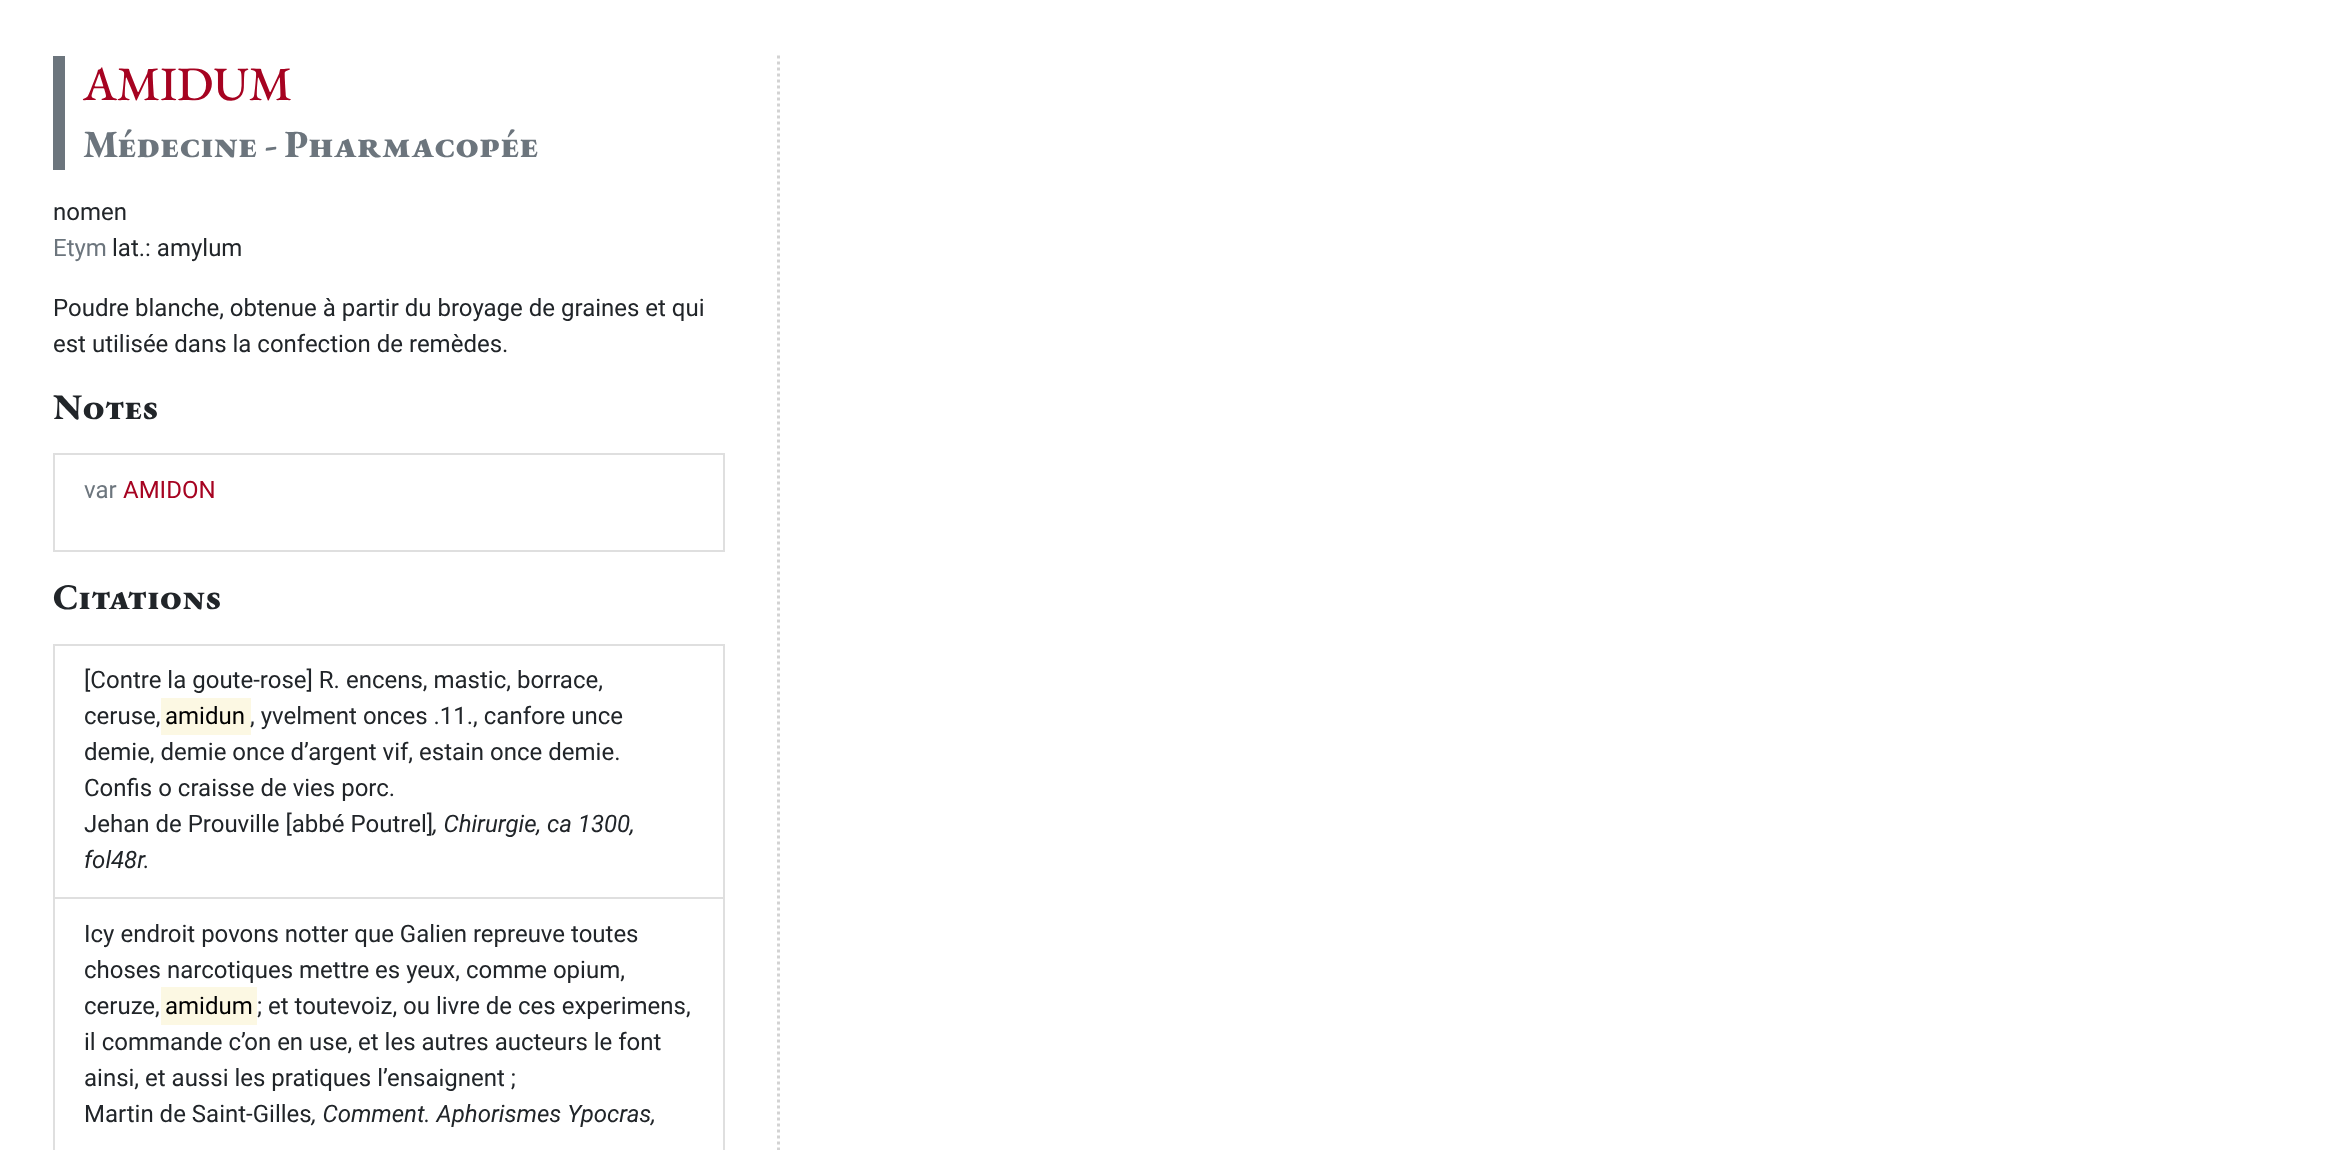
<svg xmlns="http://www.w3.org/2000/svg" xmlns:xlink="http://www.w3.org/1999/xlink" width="2339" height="1150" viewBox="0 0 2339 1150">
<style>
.cls-1{font:500 48px EB Garamond;fill:#a60321}
.cls-2{font:800 38.4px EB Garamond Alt;fill:#6c757d}
.cls-3{font:24px Roboto;fill:#212529}
.cls-4{font:24px Roboto;fill:#6c757d}
.cls-5{font:800 36px EB Garamond Alt;fill:#212529}
.cls-6{font:24px Roboto;fill:#a60321}
.cls-7{font:24px Roboto;fill:#000000}
.cls-8{font:italic 24px Roboto;fill:#212529}
</style>
<rect width="100%" height="100%" fill="#ffffff"/>
<path fill="none" stroke="#d3d3d3" stroke-width="3" stroke-dasharray="3 3" d="M778.5 55.5V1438.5"/>
<rect fill="#6c757d" x="53" y="56" width="12" height="114"/>
<rect fill="none" stroke="#dfdfdf" stroke-width="2" x="54" y="454" width="670" height="97"/>
<rect fill="none" stroke="#dfdfdf" stroke-width="2" x="54" y="645" width="670" height="253"/>
<rect fill="#fcf8e3" x="161" y="698" width="90" height="37"/>
<rect fill="none" stroke="#dfdfdf" stroke-width="2" x="54" y="898" width="670" height="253"/>
<rect fill="#fcf8e3" x="161" y="987" width="96" height="38"/>
<text class="cls-1" x="83" y="100">AMIDUM</text>
<text class="cls-2" x="83" y="157" word-spacing="-2">Médecine - Pharmacopée</text>
<text class="cls-3" x="53" y="220">nomen</text>
<text class="cls-4" x="53" y="256">Etym</text>
<text class="cls-3" x="112" y="256">lat.: amylum</text>
<text class="cls-3"><tspan x="53" y="316">Poudre blanche, obtenue à partir du broyage de graines et qui</tspan><tspan x="53" y="352">est utilisée dans la confection de remèdes.</tspan></text>
<text class="cls-5" x="53" y="419">Notes</text>
<text class="cls-4" x="84" y="498">var</text>
<text class="cls-6" x="123" y="498">AMIDON</text>
<text class="cls-5" x="53" y="609">Citations</text>
<text class="cls-3"><tspan x="84" y="688">[Contre la goute-rose] R. encens, mastic, borrace,</tspan><tspan x="84" y="724">ceruse,</tspan></text>
<text class="cls-7" x="165" y="724">amidun</text>
<text class="cls-3" x="250" y="724">, yvelment onces .11., canfore unce</text>
<text class="cls-3"><tspan x="84" y="760">demie, demie once d’argent vif, estain once demie.</tspan><tspan x="84" y="796">Confis o craisse de vies porc.</tspan><tspan x="84" y="832">Jehan de Prouville [abbé Poutrel]</tspan></text>
<text class="cls-8" x="433" y="832">, Chirurgie, ca 1300,</text>
<text class="cls-8" x="84" y="868">fol48r.</text>
<text class="cls-3"><tspan x="84" y="942">Icy endroit povons notter que Galien repreuve toutes</tspan><tspan x="84" y="978">choses narcotiques mettre es yeux, comme opium,</tspan><tspan x="84" y="1014">ceruze,</tspan></text>
<text class="cls-7" x="165" y="1014">amidum</text>
<text class="cls-3" x="257" y="1014">; et toutevoiz, ou livre de ces experimens,</text>
<text class="cls-3"><tspan x="84" y="1050">il commande c’on en use, et les autres aucteurs le font</tspan><tspan x="84" y="1086">ainsi, et aussi les pratiques l’ensaignent ;</tspan><tspan x="84" y="1122">Martin de Saint-Gilles</tspan></text>
<text class="cls-8" x="312" y="1122">, Comment. Aphorismes Ypocras,</text>
</svg>
